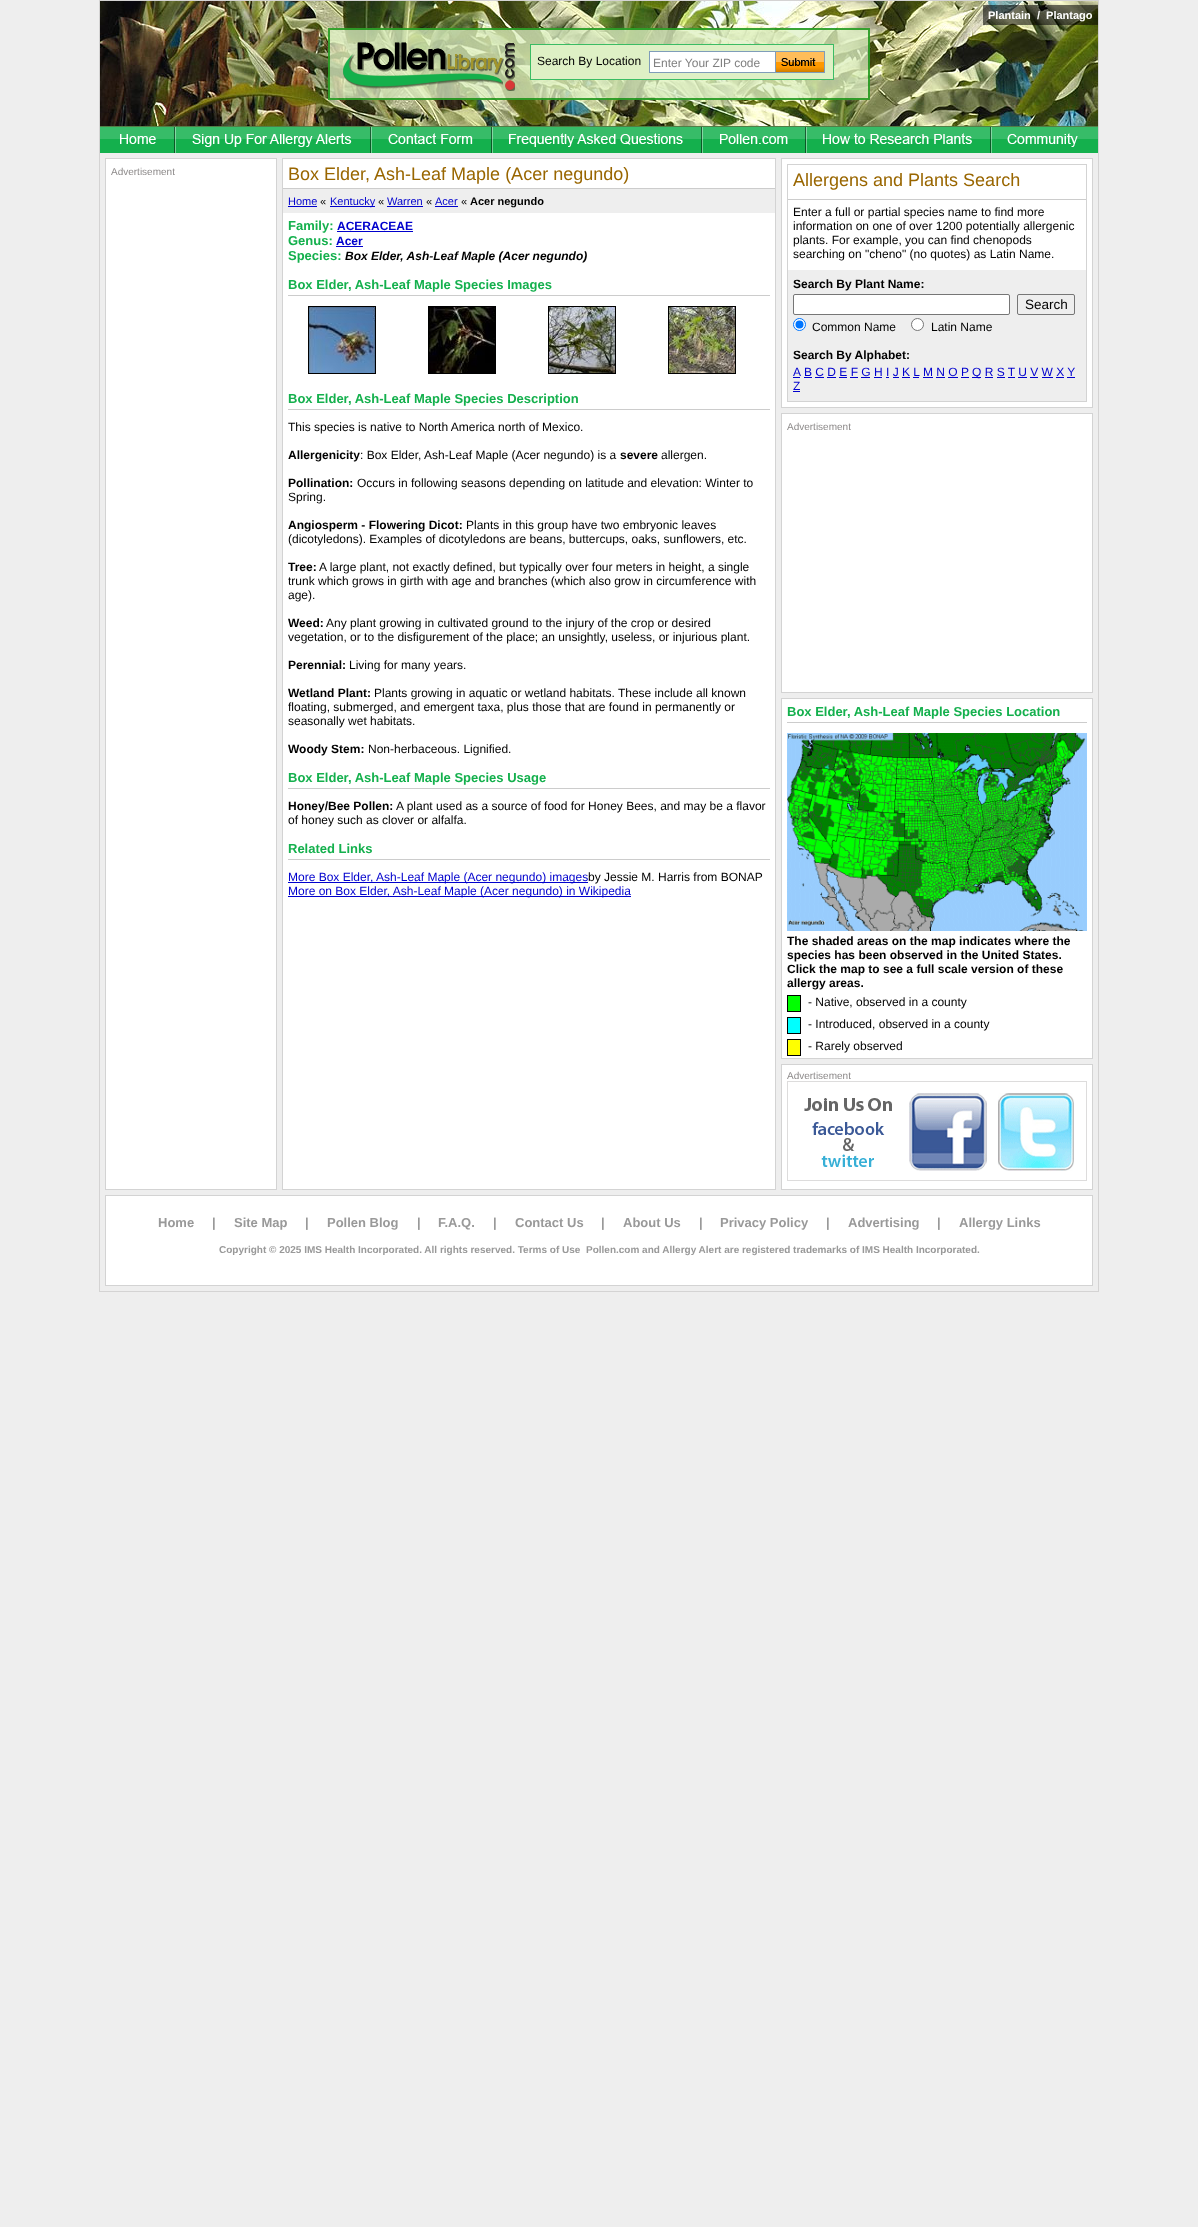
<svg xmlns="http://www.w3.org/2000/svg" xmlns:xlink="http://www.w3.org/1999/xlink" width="1198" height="2227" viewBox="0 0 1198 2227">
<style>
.cls-1{font:bold 11px Liberation Sans;fill:#ffffff}
.cls-2{font:12px Liberation Sans;fill:#000000}
.cls-3{font:12px Liberation Sans;fill:#808080}
.cls-4{font:10px Liberation Sans;fill:#8d8a8a}
.cls-5{font:18px Liberation Sans;fill:#996600}
.cls-6{font:11px Liberation Sans;fill:#0000cd}
.cls-7{font:11px Liberation Sans;fill:#000000}
.cls-8{font:bold 11px Liberation Sans;fill:#000000}
.cls-9{font:bold 13px Liberation Sans;fill:#14b04d}
.cls-10{font:bold 12px Liberation Sans;fill:#0000cd}
.cls-11{font:italic bold 12px Liberation Sans;fill:#000000}
.cls-12{font:bold 12px Liberation Sans;fill:#000000}
.cls-13{font:12px Liberation Sans;fill:#0000cd}
.cls-14{font:13.5px Liberation Sans;fill:#000000}
.cls-15{font:bold 13px Liberation Sans;fill:#999999}
.cls-16{font:bold 10px Liberation Sans;fill:#999999}
</style>
<rect width="100%" height="100%" fill="#eeeeee"/>
<rect fill="none" stroke="#d4d3d3" x="99.5" y="0.5" width="999" height="1291"/>
<image xlink:href="image0.png" x="100" y="1" width="998" height="125"/>
<rect fill="#000000" fill-opacity="0.55" x="983" y="5" width="115" height="20"/>
<rect fill="#def0c5" fill-opacity="0.75" x="328" y="28" width="542" height="72"/>
<rect fill="none" stroke="#008a00" stroke-opacity="0.75" stroke-width="2" x="329" y="29" width="540" height="70"/>
<image xlink:href="image1.png" x="343" y="42" width="172" height="49"/>
<rect fill="#def0c5" stroke="#3bbc64" x="530.5" y="44.5" width="303" height="35"/>
<rect fill="#ffffff" stroke="#7f9db9" x="649.5" y="51.5" width="126" height="21"/>
<image xlink:href="image2.png" x="776" y="51" width="49" height="22"/>
<image xlink:href="image3.png" x="100" y="126" width="76" height="27"/>
<image xlink:href="image4.png" x="176" y="126" width="196" height="27"/>
<image xlink:href="image5.png" x="372" y="126" width="121" height="27"/>
<image xlink:href="image6.png" x="493" y="126" width="210" height="27"/>
<image xlink:href="image7.png" x="703" y="126" width="104" height="27"/>
<image xlink:href="image8.png" x="807" y="126" width="185" height="27"/>
<image xlink:href="image9.png" x="992" y="126" width="106" height="27"/>
<rect fill="#ffffff" stroke="#d3d3d3" x="105.5" y="158.5" width="171" height="1031"/>
<rect fill="#ffffff" stroke="#d3d3d3" x="282.5" y="158.5" width="493" height="1031"/>
<rect fill="#cccccc" x="283" y="188" width="492" height="1"/>
<rect fill="#eeeeee" x="283" y="189" width="492" height="24"/>
<rect fill="#0000cd" x="288" y="206" width="29" height="1"/>
<rect fill="#0000cd" x="330" y="206" width="45" height="1"/>
<rect fill="#0000cd" x="387" y="206" width="36" height="1"/>
<rect fill="#0000cd" x="435" y="206" width="23" height="1"/>
<rect fill="#0000cd" x="337" y="231" width="76" height="1"/>
<rect fill="#0000cd" x="336" y="246" width="27" height="1"/>
<rect fill="#cccccc" x="288" y="295" width="482" height="1"/>
<rect fill="none" stroke="#000000" x="308.5" y="306.5" width="67" height="67"/>
<image xlink:href="image10.png" x="309" y="307" width="66" height="66"/>
<rect fill="none" stroke="#000000" x="428.5" y="306.5" width="67" height="67"/>
<image xlink:href="image11.png" x="429" y="307" width="66" height="66"/>
<rect fill="none" stroke="#000000" x="548.5" y="306.5" width="67" height="67"/>
<image xlink:href="image12.png" x="549" y="307" width="66" height="66"/>
<rect fill="none" stroke="#000000" x="668.5" y="306.5" width="67" height="67"/>
<image xlink:href="image13.png" x="669" y="307" width="66" height="66"/>
<rect fill="#cccccc" x="288" y="409" width="482" height="1"/>
<rect fill="#cccccc" x="288" y="788" width="482" height="1"/>
<rect fill="#cccccc" x="288" y="859" width="482" height="1"/>
<rect fill="#0000cd" x="288" y="882" width="300" height="1"/>
<rect fill="#0000cd" x="288" y="896" width="343" height="1"/>
<rect fill="#ffffff" stroke="#d3d3d3" x="781.5" y="158.5" width="311" height="249"/>
<rect fill="none" stroke="#d3d3d3" x="787.5" y="164.5" width="299" height="237"/>
<rect fill="#cccccc" x="788" y="199" width="298" height="1"/>
<rect fill="#eeeeee" x="788" y="270" width="298" height="131"/>
<rect fill="#ffffff" stroke="#767676" x="793.5" y="294.5" width="216" height="20" rx="1.5"/>
<rect fill="none" stroke="#767676" x="1017.5" y="294.5" width="57" height="20" rx="1.5"/>
<circle fill="#ffffff" stroke="#0075ff" cx="799.5" cy="324.5" r="6"/>
<circle fill="#0075ff" cx="799.5" cy="324.5" r="4"/>
<circle fill="#ffffff" stroke="#767676" cx="917.5" cy="324.5" r="6"/>
<rect fill="#0000cd" x="793" y="377" width="7" height="1"/>
<rect fill="#0000cd" x="804" y="377" width="8" height="1"/>
<rect fill="#0000cd" x="923" y="377" width="10" height="1"/>
<rect fill="#0000cd" x="972" y="377" width="9" height="1"/>
<rect fill="#0000cd" x="815" y="377" width="9" height="1"/>
<rect fill="#0000cd" x="827" y="377" width="9" height="1"/>
<rect fill="#0000cd" x="839" y="377" width="8" height="1"/>
<rect fill="#0000cd" x="850" y="377" width="8" height="1"/>
<rect fill="#0000cd" x="861" y="377" width="9" height="1"/>
<rect fill="#0000cd" x="874" y="377" width="8" height="1"/>
<rect fill="#0000cd" x="886" y="377" width="3" height="1"/>
<rect fill="#0000cd" x="893" y="377" width="6" height="1"/>
<rect fill="#0000cd" x="902" y="377" width="8" height="1"/>
<rect fill="#0000cd" x="913" y="377" width="6" height="1"/>
<rect fill="#0000cd" x="936" y="377" width="9" height="1"/>
<rect fill="#0000cd" x="948" y="377" width="10" height="1"/>
<rect fill="#0000cd" x="961" y="377" width="8" height="1"/>
<rect fill="#0000cd" x="985" y="377" width="8" height="1"/>
<rect fill="#0000cd" x="997" y="377" width="8" height="1"/>
<rect fill="#0000cd" x="1008" y="377" width="7" height="1"/>
<rect fill="#0000cd" x="1018" y="377" width="9" height="1"/>
<rect fill="#0000cd" x="1030" y="377" width="8" height="1"/>
<rect fill="#0000cd" x="1042" y="377" width="11" height="1"/>
<rect fill="#0000cd" x="1056" y="377" width="8" height="1"/>
<rect fill="#0000cd" x="1067" y="377" width="8" height="1"/>
<rect fill="#0000cd" x="793" y="391" width="7" height="1"/>
<rect fill="#ffffff" stroke="#d3d3d3" x="781.5" y="413.5" width="311" height="279"/>
<rect fill="#ffffff" stroke="#d3d3d3" x="781.5" y="698.5" width="311" height="360"/>
<rect fill="#cccccc" x="787" y="722" width="300" height="1"/>
<image xlink:href="image14.png" x="787" y="733" width="300" height="198"/>
<rect fill="#00ff00" stroke="#000000" x="787.5" y="995.5" width="13" height="16"/>
<rect fill="#00ffff" stroke="#000000" x="787.5" y="1017.5" width="13" height="16"/>
<rect fill="#ffff00" stroke="#000000" x="787.5" y="1039.5" width="13" height="16"/>
<rect fill="#ffffff" stroke="#d3d3d3" x="781.5" y="1064.5" width="311" height="125"/>
<image xlink:href="image15.png" x="787" y="1081" width="300" height="100"/>
<rect fill="#ffffff" stroke="#d3d3d3" x="105.5" y="1195.5" width="987" height="90"/>
<text class="cls-1" xml:space="preserve" x="988" y="19">Plantain  /  Plantago</text>
<text class="cls-2" x="537" y="65">Search By Location</text>
<text class="cls-3" x="653" y="67">Enter Your ZIP code</text>
<text class="cls-4" x="111" y="175">Advertisement</text>
<text class="cls-5" x="288" y="180">Box Elder, Ash-Leaf Maple (Acer negundo)</text>
<text class="cls-6" x="288" y="205">Home</text>
<text class="cls-7" x="320" y="205">«</text>
<text class="cls-6" x="330" y="205">Kentucky</text>
<text class="cls-7" x="378" y="205">«</text>
<text class="cls-6" x="387" y="205">Warren</text>
<text class="cls-7" x="426" y="205">«</text>
<text class="cls-6" x="435" y="205">Acer</text>
<text class="cls-7" x="461" y="205">«</text>
<text class="cls-8" x="470" y="205">Acer negundo</text>
<text class="cls-9" x="288" y="230">Family:</text>
<text class="cls-10" x="337" y="230">ACERACEAE</text>
<text class="cls-9" x="288" y="245">Genus:</text>
<text class="cls-10" x="336" y="245">Acer</text>
<text class="cls-9" x="288" y="260">Species:</text>
<text class="cls-11" x="345" y="260">Box Elder, Ash-Leaf Maple (Acer negundo)</text>
<text class="cls-9" x="288" y="289">Box Elder, Ash-Leaf Maple Species Images</text>
<text class="cls-9" x="288" y="403">Box Elder, Ash-Leaf Maple Species Description</text>
<text class="cls-2" x="288" y="431">This species is native to North America north of Mexico.</text>
<text class="cls-12" x="288" y="459">Allergenicity</text>
<text class="cls-2" x="360" y="459">: Box Elder, Ash-Leaf Maple (Acer negundo) is a</text>
<text class="cls-12" x="620" y="459">severe</text>
<text class="cls-2" x="661" y="459">allergen.</text>
<text class="cls-12" x="288" y="487">Pollination:</text>
<text class="cls-2" x="357" y="487">Occurs in following seasons depending on latitude and elevation: Winter to</text>
<text class="cls-2" x="288" y="501">Spring.</text>
<text class="cls-12" x="288" y="529">Angiosperm - Flowering Dicot:</text>
<text class="cls-2" x="466" y="529">Plants in this group have two embryonic leaves</text>
<text class="cls-2" x="288" y="543">(dicotyledons). Examples of dicotyledons are beans, buttercups, oaks, sunflowers, etc.</text>
<text class="cls-12" x="288" y="571">Tree:</text>
<text class="cls-2" x="319" y="571">A large plant, not exactly defined, but typically over four meters in height, a single</text>
<text class="cls-2"><tspan x="288" y="585">trunk which grows in girth with age and branches (which also grow in circumference with</tspan><tspan x="288" y="599">age).</tspan></text>
<text class="cls-12" x="288" y="627">Weed:</text>
<text class="cls-2" x="326" y="627">Any plant growing in cultivated ground to the injury of the crop or desired</text>
<text class="cls-2" x="288" y="641">vegetation, or to the disfigurement of the place; an unsightly, useless, or injurious plant.</text>
<text class="cls-12" x="288" y="669">Perennial:</text>
<text class="cls-2" x="349" y="669">Living for many years.</text>
<text class="cls-12" x="288" y="697">Wetland Plant:</text>
<text class="cls-2" x="374" y="697">Plants growing in aquatic or wetland habitats. These include all known</text>
<text class="cls-2"><tspan x="288" y="711">floating, submerged, and emergent taxa, plus those that are found in permanently or</tspan><tspan x="288" y="725">seasonally wet habitats.</tspan></text>
<text class="cls-12" x="288" y="753">Woody Stem:</text>
<text class="cls-2" x="368" y="753">Non-herbaceous. Lignified.</text>
<text class="cls-9" x="288" y="782">Box Elder, Ash-Leaf Maple Species Usage</text>
<text class="cls-12" x="288" y="810">Honey/Bee Pollen:</text>
<text class="cls-2" x="396" y="810">A plant used as a source of food for Honey Bees, and may be a flavor</text>
<text class="cls-2" x="288" y="824">of honey such as clover or alfalfa.</text>
<text class="cls-9" x="288" y="853">Related Links</text>
<text class="cls-13" x="288" y="881">More Box Elder, Ash-Leaf Maple (Acer negundo) images</text>
<text class="cls-2" x="588" y="881">by Jessie M. Harris from BONAP</text>
<text class="cls-13" x="288" y="895">More on Box Elder, Ash-Leaf Maple (Acer negundo) in Wikipedia</text>
<text class="cls-5" x="793" y="186">Allergens and Plants Search</text>
<text class="cls-2"><tspan x="793" y="216">Enter a full or partial species name to find more</tspan><tspan x="793" y="230">information on one of over 1200 potentially allergenic</tspan><tspan x="793" y="244">plants. For example, you can find chenopods</tspan><tspan x="793" y="258">searching on "cheno" (no quotes) as Latin Name.</tspan></text>
<text class="cls-12" x="793" y="288">Search By Plant Name:</text>
<text class="cls-14" x="1025" y="309">Search</text>
<text class="cls-2" x="812" y="331">Common Name</text>
<text class="cls-2" x="931" y="331">Latin Name</text>
<text class="cls-12" x="793" y="359">Search By Alphabet:</text>
<text class="cls-13" x="793" y="376">A</text>
<text class="cls-13" x="804" y="376">B C D E F G H I J K L</text>
<text class="cls-13" x="923" y="376">M N O P</text>
<text class="cls-13" x="972" y="376">Q R S T U V W X Y</text>
<text class="cls-13" x="793" y="390">Z</text>
<text class="cls-4" x="787" y="430">Advertisement</text>
<text class="cls-9" x="787" y="716">Box Elder, Ash-Leaf Maple Species Location</text>
<text class="cls-12"><tspan x="787" y="945">The shaded areas on the map indicates where the</tspan><tspan x="787" y="959">species has been observed in the United States.</tspan><tspan x="787" y="973">Click the map to see a full scale version of these</tspan><tspan x="787" y="987">allergy areas.</tspan></text>
<text class="cls-2"><tspan x="808" y="1006">- Native, observed in a county</tspan><tspan x="808" y="1028">- Introduced, observed in a county</tspan><tspan x="808" y="1050">- Rarely observed</tspan></text>
<text class="cls-4" x="787" y="1079">Advertisement</text>
<text class="cls-15" x="158" y="1227">Home</text>
<text class="cls-15" x="212" y="1227">|</text>
<text class="cls-15" x="234" y="1227">Site Map</text>
<text class="cls-15" x="305" y="1227">|</text>
<text class="cls-15" x="327" y="1227">Pollen Blog</text>
<text class="cls-15" x="417" y="1227">|</text>
<text class="cls-15" x="438" y="1227">F.A.Q.</text>
<text class="cls-15" x="493" y="1227">|</text>
<text class="cls-15" x="515" y="1227">Contact Us</text>
<text class="cls-15" x="601" y="1227">|</text>
<text class="cls-15" x="623" y="1227">About Us</text>
<text class="cls-15" x="699" y="1227">|</text>
<text class="cls-15" x="720" y="1227">Privacy Policy</text>
<text class="cls-15" x="826" y="1227">|</text>
<text class="cls-15" x="848" y="1227">Advertising</text>
<text class="cls-15" x="937" y="1227">|</text>
<text class="cls-15" x="959" y="1227">Allergy Links</text>
<text class="cls-16" x="219" y="1253">Copyright © 2025 IMS Health Incorporated. All rights reserved. Terms of Use</text>
<text class="cls-16" x="586" y="1253">Pollen.com and Allergy Alert are registered trademarks of IMS Health Incorporated.</text>
</svg>
